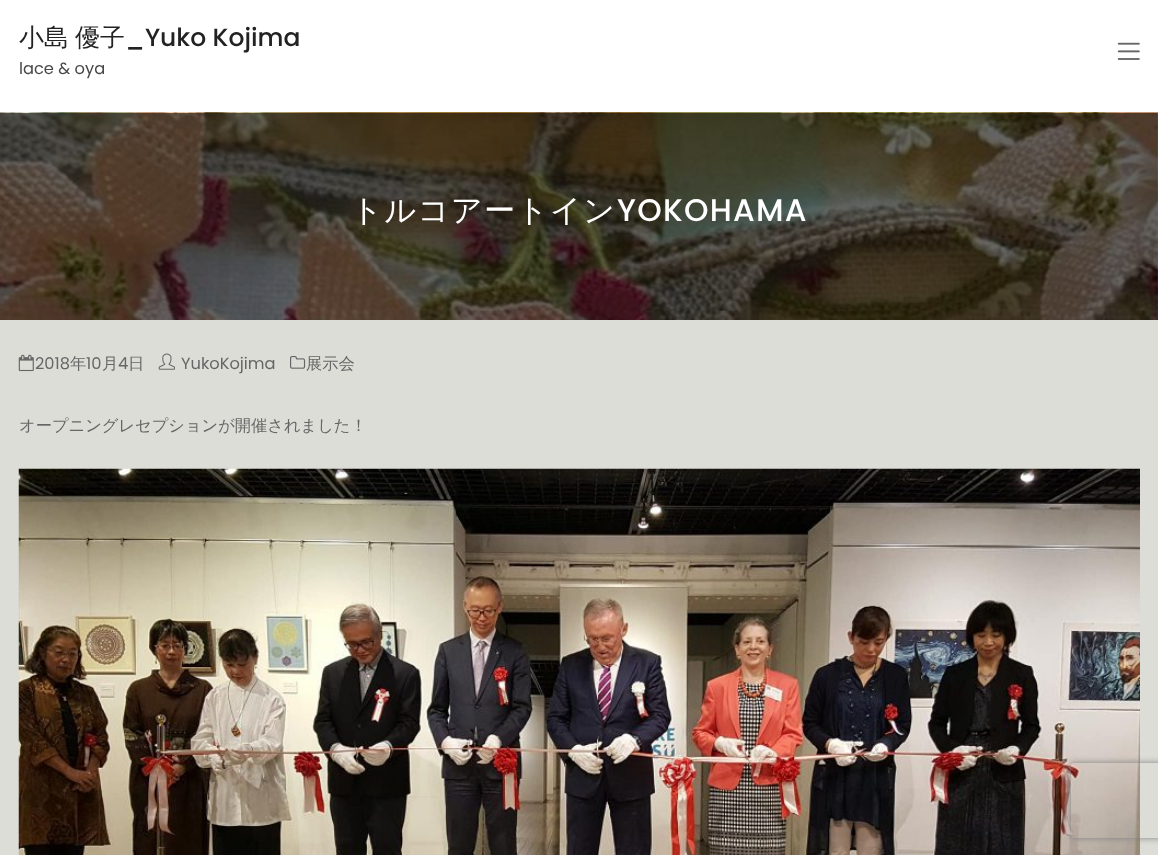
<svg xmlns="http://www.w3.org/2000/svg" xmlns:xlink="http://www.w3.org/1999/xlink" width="1158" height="855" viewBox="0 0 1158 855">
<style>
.cls-1{font:500 25px WenQuanYi Zen Hei;fill:#222222}
.cls-2{font:500 25px Poppins;fill:#222222}
.cls-3{font:16.25px Poppins;fill:#474747}
.cls-4{font:500 31.25px WenQuanYi Zen Hei;letter-spacing:1.25px;fill:#ffffff}
.cls-5{font:500 31.25px Poppins;letter-spacing:1.25px;fill:#ffffff}
.cls-6{font:16.25px Poppins;fill:#666666}
.cls-7{font:500 16.25px WenQuanYi Zen Hei;fill:#666666}
</style>
<defs>
<clipPath id="clip1"><path d="M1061 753H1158V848H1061ZM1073.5 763H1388.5C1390 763 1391 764 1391 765.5V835.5C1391 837 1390 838 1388.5 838H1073.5C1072 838 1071 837 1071 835.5V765.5C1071 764 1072 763 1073.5 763Z" clip-rule="evenodd"/></clipPath>
</defs>
<rect width="100%" height="100%" fill="#ddddd7"/>
<rect fill="#ffffff" x="0" y="0" width="1158" height="113"/>
<image xlink:href="image0.png" x="1117" y="42" width="23" height="18"/>
<image xlink:href="image1.png" x="0" y="112" width="1158" height="208"/>
<image xlink:href="image2.png" x="18" y="354" width="16" height="18"/>
<image xlink:href="image3.png" x="158" y="353" width="17" height="17"/>
<image xlink:href="image4.png" x="290" y="356" width="16" height="13"/>
<image xlink:href="image5.png" x="18" y="468" width="1122" height="387"/>
<g clip-path="url(#clip1)">
<rect fill="#808080" filter="blur(3px)" x="1071" y="763" width="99" height="75" rx="2.5"/>
</g>
<text class="cls-1" x="19" y="46">小島</text>
<text class="cls-1" x="75" y="46">優子</text>
<text class="cls-2" x="125" y="46">_Yuko Kojima</text>
<text class="cls-3" x="19" y="74">lace &amp; oya</text>
<text class="cls-4" x="351" y="221">トルコアートイン</text>
<text class="cls-5" x="617" y="221">YOKOHAMA</text>
<text class="cls-6" x="35" y="369">2018</text>
<text class="cls-7" x="70" y="369">年</text>
<text class="cls-6" x="86" y="369">10</text>
<text class="cls-7" x="102" y="369">月</text>
<text class="cls-6" x="118" y="369">4</text>
<text class="cls-7" x="128" y="369">日</text>
<text class="cls-6" x="181" y="369">YukoKojima</text>
<text class="cls-7" x="306" y="369">展示会</text>
<text class="cls-7" x="19" y="431">オープニングレセプションが開催されました！</text>
</svg>
